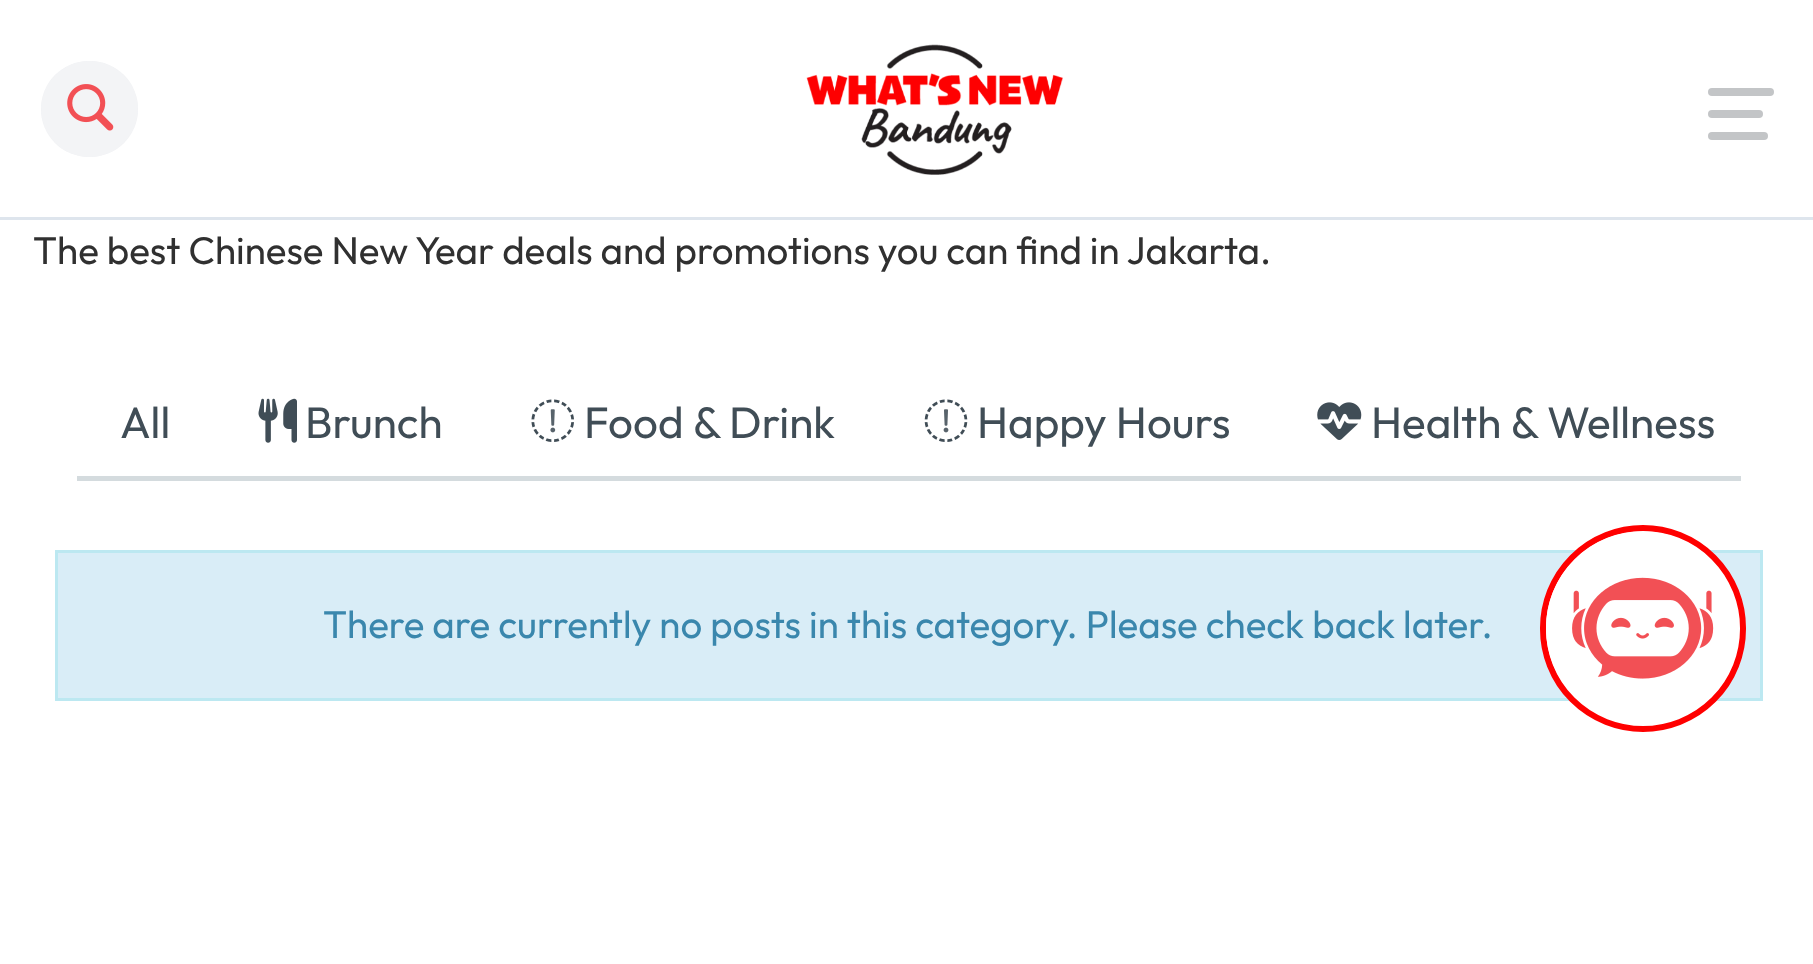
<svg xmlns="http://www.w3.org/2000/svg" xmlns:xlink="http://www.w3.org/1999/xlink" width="1813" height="964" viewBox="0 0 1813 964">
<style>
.cls-1{font:38.5px Outfit;fill:#303030}
.cls-2{font:44px Outfit;fill:#404d56}
.cls-3{font:38.5px Outfit;fill:#3a87ad}
</style>
<rect width="100%" height="100%" fill="#ffffff"/>
<rect fill="#dee5ed" x="0" y="217" width="1813" height="3"/>
<rect fill="#f3f4f6" x="41" y="61" width="97" height="96" rx="48"/>
<rect fill="#f2f3f5" fill-opacity="0.93" x="41" y="61" width="97" height="96" rx="48"/>
<image xlink:href="image0.png" x="67" y="84" width="47" height="47"/>
<image xlink:href="image1.png" x="806" y="44" width="257" height="131"/>
<rect fill="#c3c5c7" x="1708" y="88" width="66" height="8" rx="4"/>
<rect fill="#c3c5c7" x="1708" y="110" width="55" height="8" rx="4"/>
<rect fill="#c3c5c7" x="1708" y="132" width="60" height="8" rx="4"/>
<rect fill="#d4dbde" x="77" y="476" width="1664" height="5"/>
<image xlink:href="image2.png" x="258" y="398" width="39" height="45"/>
<image xlink:href="image3.png" x="531" y="399" width="43" height="43"/>
<image xlink:href="image4.png" x="924" y="399" width="44" height="43"/>
<image xlink:href="image5.png" x="1317" y="402" width="45" height="38"/>
<rect fill="#d9edf7" stroke="#bce8f1" stroke-width="3" x="56.5" y="551.5" width="1705" height="148"/>
<rect fill="#ffffff" stroke="#ff0000" stroke-width="6" x="1543" y="528" width="200" height="201" rx="100"/>
<image xlink:href="image6.png" x="1546" y="531" width="168" height="155"/>
<text class="cls-1" x="33" y="264">The best Chinese New Year deals and promotions you can find in Jakarta.</text>
<text class="cls-2" x="120" y="438">All</text>
<text class="cls-2" x="305" y="438">Brunch</text>
<text class="cls-2" x="584" y="438">Food &amp; Drink</text>
<text class="cls-2" x="977" y="438">Happy Hours</text>
<text class="cls-2" x="1371" y="438">Health &amp; Wellness</text>
<text class="cls-3" x="323" y="638">There are currently no posts in this category. Please check back later.</text>
</svg>
